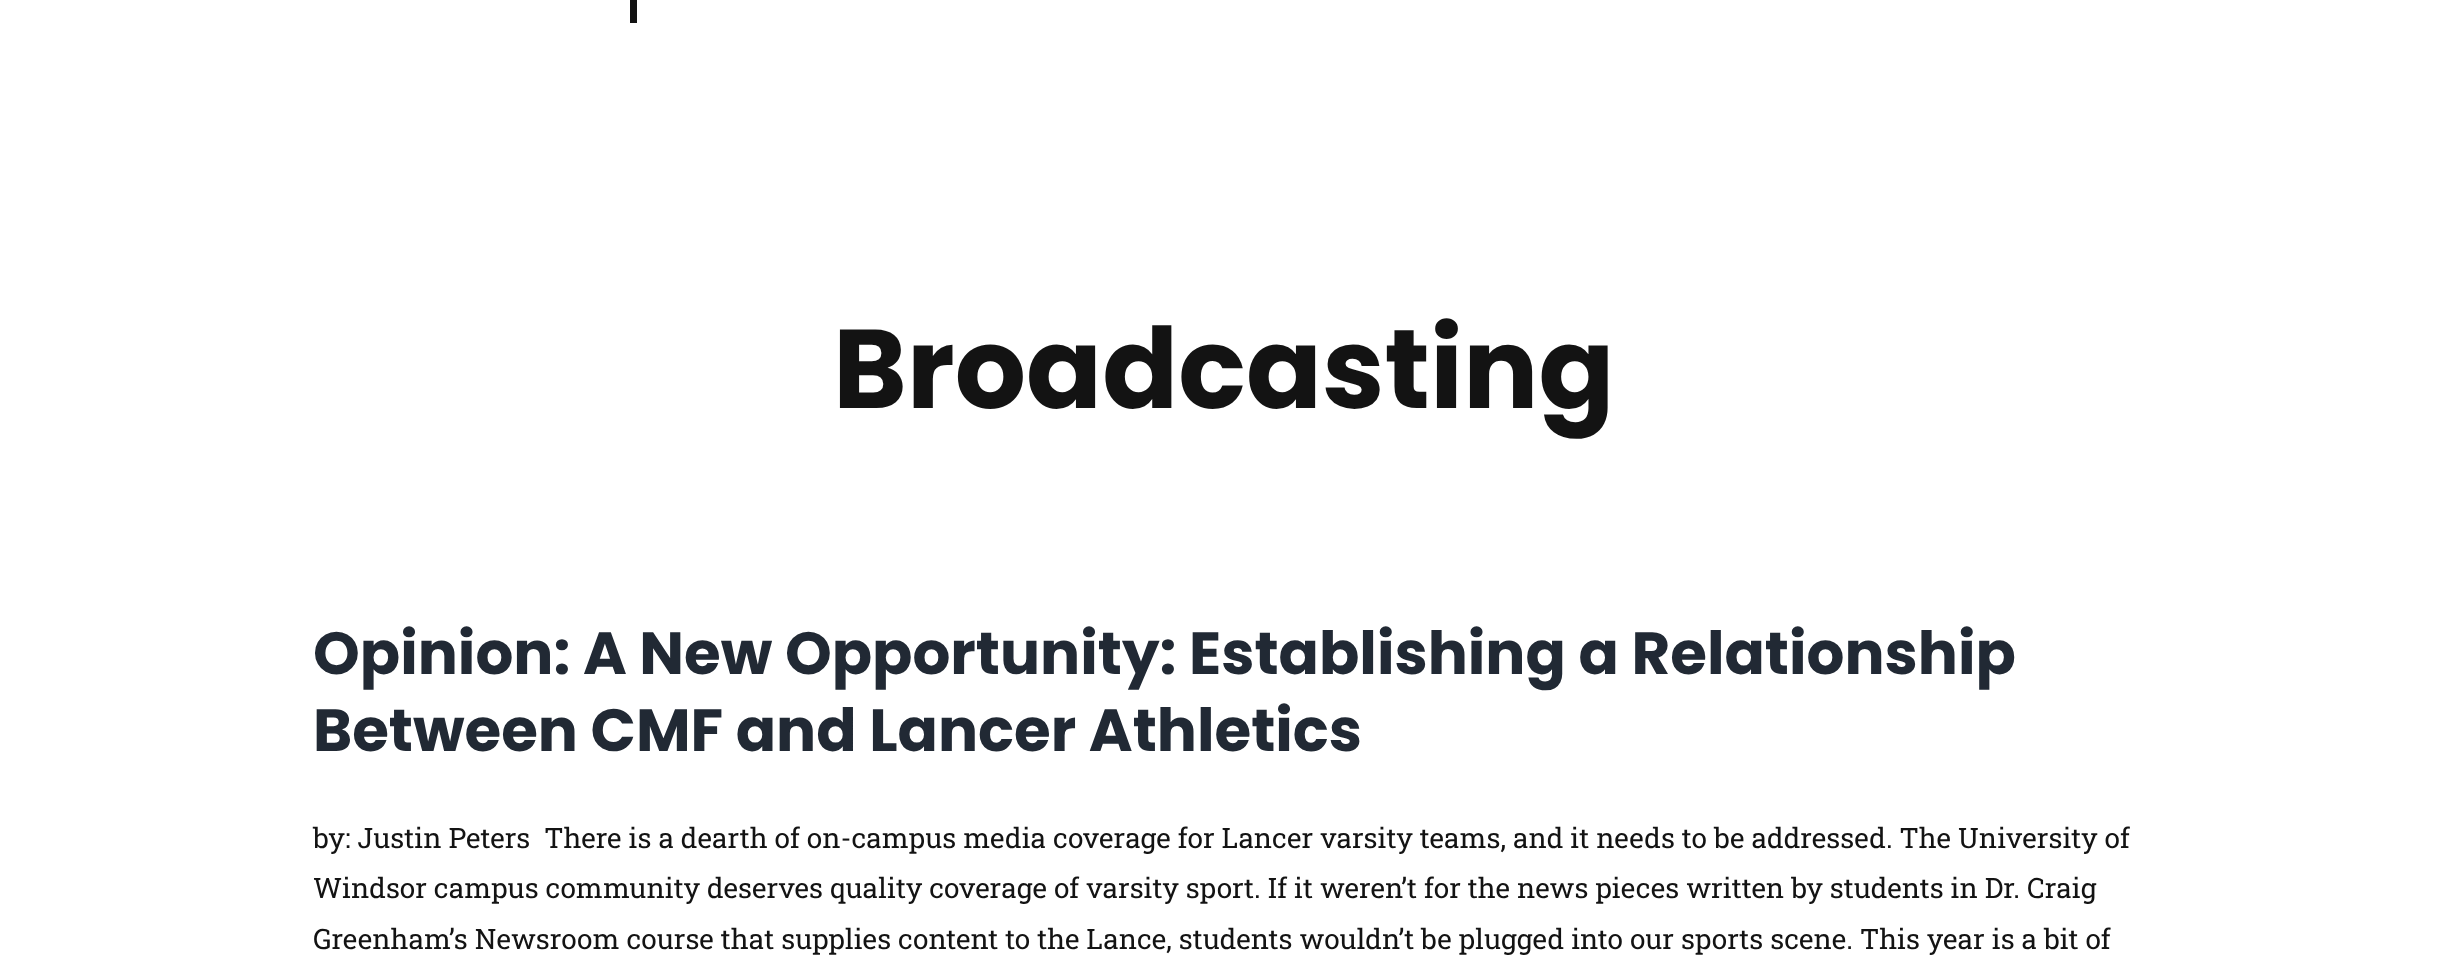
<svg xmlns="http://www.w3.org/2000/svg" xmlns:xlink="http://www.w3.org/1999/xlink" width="2448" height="974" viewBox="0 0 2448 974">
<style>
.cls-1{font:bold 112px Poppins;fill:#131313}
.cls-2{font:bold 59.5px Poppins;fill:#212934}
.cls-3{font:28px Roboto Slab;fill:#131313}
</style>
<rect width="100%" height="100%" fill="#ffffff"/>
<rect fill="#131313" x="630" y="0" width="7" height="23"/>
<text class="cls-1" x="833" y="408">Broadcasting</text>
<text class="cls-2"><tspan x="313" y="674">Opinion: A New Opportunity: Establishing a Relationship</tspan><tspan x="313" y="751">Between CMF and Lancer Athletics</tspan></text>
<text class="cls-3" xml:space="preserve"><tspan x="313" y="848">by: Justin Peters  There is a dearth of on-campus media coverage for Lancer varsity teams, and it needs to be addressed. The University of</tspan><tspan x="313" y="898">Windsor campus community deserves quality coverage of varsity sport. If it weren’t for the news pieces written by students in Dr. Craig</tspan><tspan x="313" y="949">Greenham’s Newsroom course that supplies content to the Lance, students wouldn’t be plugged into our sports scene. This year is a bit of</tspan></text>
</svg>
